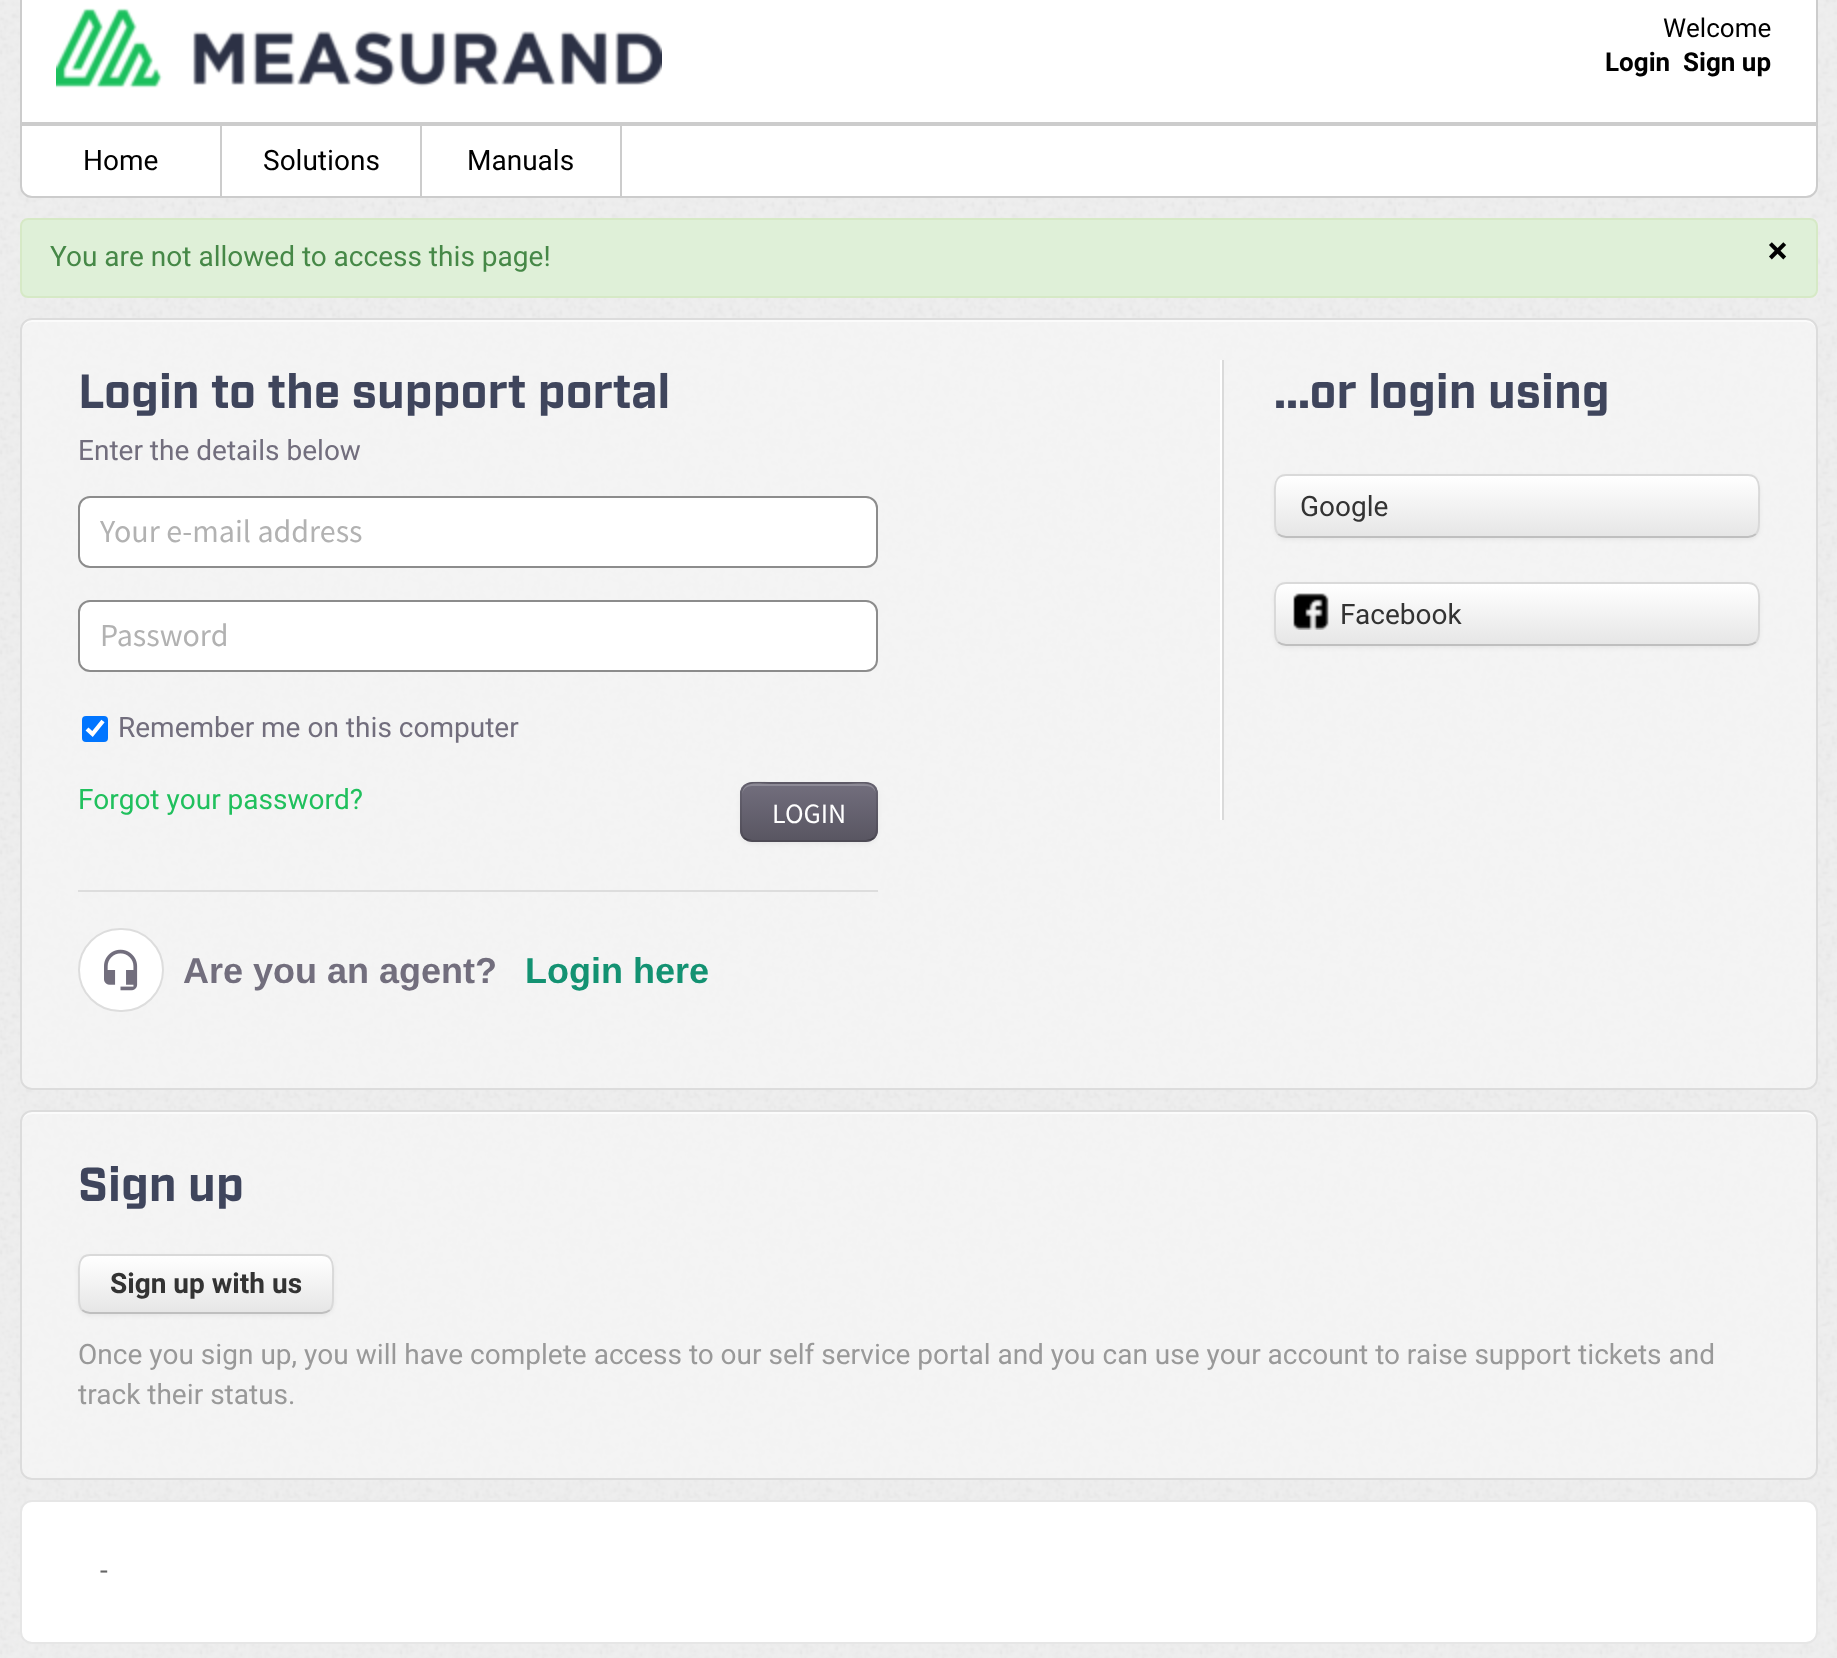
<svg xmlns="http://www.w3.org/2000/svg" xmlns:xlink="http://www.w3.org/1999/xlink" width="1837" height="1658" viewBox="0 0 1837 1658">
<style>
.cls-1{font:26px Heebo;fill:#000000}
.cls-2{font:bold 26px Heebo;fill:#000000}
.cls-3{font:28px Heebo;fill:#000000}
.cls-4{font:28px Heebo;fill:#468847}
.cls-5{font:bold 40px Source Sans Pro;fill:#000000}
.cls-6{font:bold 48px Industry;fill:#3f455c}
.cls-7{font:28px Heebo;fill:#726e7d}
.cls-8{font:32px Source Sans Pro;fill:#b2b2b2}
.cls-9{font:28px Heebo;fill:#20c05d}
.cls-10{font:28px Source Sans Pro;fill:#ffffff}
.cls-11{font:bold 36px Liberation Sans;fill:#726e7d}
.cls-12{font:bold 36px Liberation Sans;fill:#139272}
.cls-13{font:28px Heebo;fill:#333333}
.cls-14{font:bold 28px Heebo;fill:#333333}
.cls-15{font:28px Heebo;fill:#999999}
.cls-16{font:28px Heebo;fill:#666666}
</style>
<defs>
<clipPath id="clip1"><rect x="740" y="782" width="138" height="60" rx="12"/></clipPath>
<linearGradient id="g1" gradientUnits="userSpaceOnUse" x1="809" y1="784" x2="809" y2="840"><stop offset="0" stop-color="#726e7d"/><stop offset="1" stop-color="#595662"/></linearGradient>
<clipPath id="clip2"><rect x="1274" y="474" width="486" height="64" rx="12"/></clipPath>
<linearGradient id="g2" gradientUnits="userSpaceOnUse" x1="1517" y1="476" x2="1517" y2="536"><stop offset="0" stop-color="#ffffff"/><stop offset="1" stop-color="#e6e6e6"/></linearGradient>
<clipPath id="clip3"><rect x="1274" y="582" width="486" height="64" rx="12"/></clipPath>
<linearGradient id="g3" gradientUnits="userSpaceOnUse" x1="1517" y1="584" x2="1517" y2="644"><stop offset="0" stop-color="#ffffff"/><stop offset="1" stop-color="#e6e6e6"/></linearGradient>
<clipPath id="clip4"><rect x="78" y="1254" width="256" height="60" rx="12"/></clipPath>
<linearGradient id="g4" gradientUnits="userSpaceOnUse" x1="206" y1="1256" x2="206" y2="1312"><stop offset="0" stop-color="#ffffff"/><stop offset="1" stop-color="#e6e6e6"/></linearGradient>
</defs>
<rect width="100%" height="100%" fill="#efefef"/>
<image xlink:href="image0.png" x="0" y="0" width="1837" height="1658"/>
<rect fill="#ffffff" stroke="#cccccc" stroke-width="2" x="21" y="-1" width="1796" height="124"/>
<image xlink:href="image1.png" x="56" y="8" width="606" height="80"/>
<path fill="#ffffff" d="M20 124H1818V186C1818 192.5 1812.5 198 1806 198H32C25.5 198 20 192.5 20 186Z"/>
<path fill="none" stroke="#000000" stroke-opacity="0.2" stroke-width="2" d="M21 125H1817V186C1817 192 1812 197 1806 197H32C26 197 21 192 21 186Z"/>
<rect fill="#cccccc" x="220" y="126" width="2" height="70"/>
<rect fill="#cccccc" x="420" y="126" width="2" height="70"/>
<rect fill="#cccccc" x="620" y="126" width="2" height="70"/>
<rect fill="#dff0d8" stroke="#d6e9c6" stroke-width="2" x="21" y="219" width="1796" height="78" rx="7"/>
<rect fill="#f4f4f4" fill-opacity="0.9" x="20" y="318" width="1798" height="772" rx="12"/>
<path fill="#fbfbfb" d="M32 322H1806C1812 322 1816 326 1816 332C1816 326 1813 320 1806 320H32C25 320 22 326 22 332C22 326 26 322 32 322Z"/>
<rect fill="none" stroke="#dcdcdc" stroke-width="2" x="21" y="319" width="1796" height="770" rx="11"/>
<rect fill="#ffffff" stroke="#8c8c8c" stroke-width="2" x="79" y="497" width="798" height="70" rx="11"/>
<rect fill="#ffffff" stroke="#8c8c8c" stroke-width="2" x="79" y="601" width="798" height="70" rx="11"/>
<rect fill="#0075ff" x="82" y="716" width="26" height="26" rx="4"/>
<path fill="none" stroke="#ffffff" stroke-width="4.2" d="M87 729L92.5 734L103 721"/>
<rect fill="#000000" fill-opacity="0.05" filter="blur(2px)" x="740" y="784" width="138" height="60" rx="12"/>
<rect fill="#686472" x="740" y="782" width="138" height="60" rx="12"/>
<g clip-path="url(#clip1)">
<rect fill="url(#g1)" x="740" y="784" width="138" height="56"/>
</g>
<path fill="#ffffff" fill-opacity="0.2" d="M752 786H866C872 786 876 790 876 796C876 779 859 784 847 784H771C759 784 742 779 742 796C742 790 746 786 752 786Z"/>
<path fill="none" stroke="#000000" stroke-opacity="0.25" stroke-width="2" d="M874 838C871.5 840 869 841 866 841H752C749 841 746.5 840 744 838"/>
<path fill="none" stroke="#000000" stroke-opacity="0.1" stroke-width="2" d="M744 838C740.5 834 741 829 741 824V792C744 779 763 783 771 783H847C879 783 877 781 877 812V824C877 829 877.5 834 874 838"/>
<rect fill="#dddddd" x="78" y="890" width="800" height="2"/>
<rect fill="#ffffff" stroke="#dddddd" stroke-width="2" x="79" y="929" width="84" height="82" rx="41"/>
<image xlink:href="image2.png" x="104" y="949" width="34" height="42"/>
<rect fill="#ffffff" x="1220" y="360" width="2" height="460"/>
<rect fill="#dadada" x="1222" y="360" width="2" height="460"/>
<rect fill="#000000" fill-opacity="0.05" filter="blur(2px)" x="1274" y="476" width="486" height="64" rx="12"/>
<g clip-path="url(#clip2)">
<rect fill="url(#g2)" x="1274" y="476" width="486" height="60"/>
</g>
<path fill="none" stroke="#bfbfbf" stroke-width="2" d="M1756 534C1753.5 536 1751 537 1748 537H1286C1283 537 1280.5 536 1278 534"/>
<path fill="none" stroke="#d9d9d9" stroke-width="2" d="M1278 534C1274.5 530 1275 524.5 1275 519.5V499.5C1275 490.5 1272.5 475 1286 475H1748C1761.5 475 1759 490.5 1759 499.5V519.5C1759 524.5 1759.5 530 1756 534"/>
<rect fill="#000000" fill-opacity="0.05" filter="blur(2px)" x="1274" y="584" width="486" height="64" rx="12"/>
<g clip-path="url(#clip3)">
<rect fill="url(#g3)" x="1274" y="584" width="486" height="60"/>
</g>
<path fill="none" stroke="#bfbfbf" stroke-width="2" d="M1756 642C1753.5 644 1751 645 1748 645H1286C1283 645 1280.5 644 1278 642"/>
<path fill="none" stroke="#d9d9d9" stroke-width="2" d="M1278 642C1274.5 638 1275 632.5 1275 627.5V607.5C1275 598.5 1272.5 583 1286 583H1748C1761.5 583 1759 598.5 1759 607.5V627.5C1759 632.5 1759.5 638 1756 642"/>
<image xlink:href="image3.png" x="1293" y="593" width="36" height="37"/>
<rect fill="#f4f4f4" fill-opacity="0.9" x="20" y="1110" width="1798" height="370" rx="12"/>
<path fill="#fbfbfb" d="M32 1114H1806C1812 1114 1816 1118 1816 1124C1816 1118 1813 1112 1806 1112H32C25 1112 22 1118 22 1124C22 1118 26 1114 32 1114Z"/>
<rect fill="none" stroke="#dcdcdc" stroke-width="2" x="21" y="1111" width="1796" height="368" rx="11"/>
<rect fill="#000000" fill-opacity="0.05" filter="blur(2px)" x="78" y="1256" width="256" height="60" rx="12"/>
<g clip-path="url(#clip4)">
<rect fill="url(#g4)" x="78" y="1256" width="256" height="56"/>
</g>
<path fill="none" stroke="#bfbfbf" stroke-width="2" d="M330 1310C327.5 1312 325 1313 322 1313H90C87 1313 84.5 1312 82 1310"/>
<path fill="none" stroke="#d9d9d9" stroke-width="2" d="M82 1310C78.5 1306 79 1301 79 1296V1278C79 1269.5 77 1255 90 1255H322C335 1255 333 1269.5 333 1278V1296C333 1301 333.5 1306 330 1310"/>
<rect fill="#ffffff" stroke="#e6e6e6" stroke-width="2" x="21" y="1501" width="1796" height="142" rx="11"/>
<text class="cls-1" x="1663" y="37">Welcome</text>
<text class="cls-2" x="1605" y="71">Login</text>
<text class="cls-2" x="1683" y="71">Sign up</text>
<text class="cls-3" x="83" y="170">Home</text>
<text class="cls-3" x="263" y="170">Solutions</text>
<text class="cls-3" x="467" y="170">Manuals</text>
<text class="cls-4" x="50" y="266">You are not allowed to access this page!</text>
<text class="cls-5" x="1767" y="264">×</text>
<text class="cls-6" x="78" y="408">Login to the support portal</text>
<text class="cls-7" x="78" y="460">Enter the details below</text>
<text class="cls-8" x="100" y="542">Your e-mail address</text>
<text class="cls-8" x="100" y="646">Password</text>
<text class="cls-7" x="118" y="737">Remember me on this computer</text>
<text class="cls-9" x="78" y="809">Forgot your password?</text>
<text class="cls-10" x="772" y="823">LOGIN</text>
<text class="cls-11" x="183" y="983">Are you an agent?</text>
<text class="cls-12" x="525" y="983">Login here</text>
<text class="cls-6" x="1274" y="408">...or login using</text>
<text class="cls-13" x="1300" y="516">Google</text>
<text class="cls-13" x="1340" y="624">Facebook</text>
<text class="cls-6" x="78" y="1201">Sign up</text>
<text class="cls-14" x="110" y="1293">Sign up with us</text>
<text class="cls-15"><tspan x="78" y="1364">Once you sign up, you will have complete access to our self service portal and you can use your account to raise support tickets and</tspan><tspan x="78" y="1404">track their status.</tspan></text>
<text class="cls-16" x="100" y="1580">-</text>
</svg>
